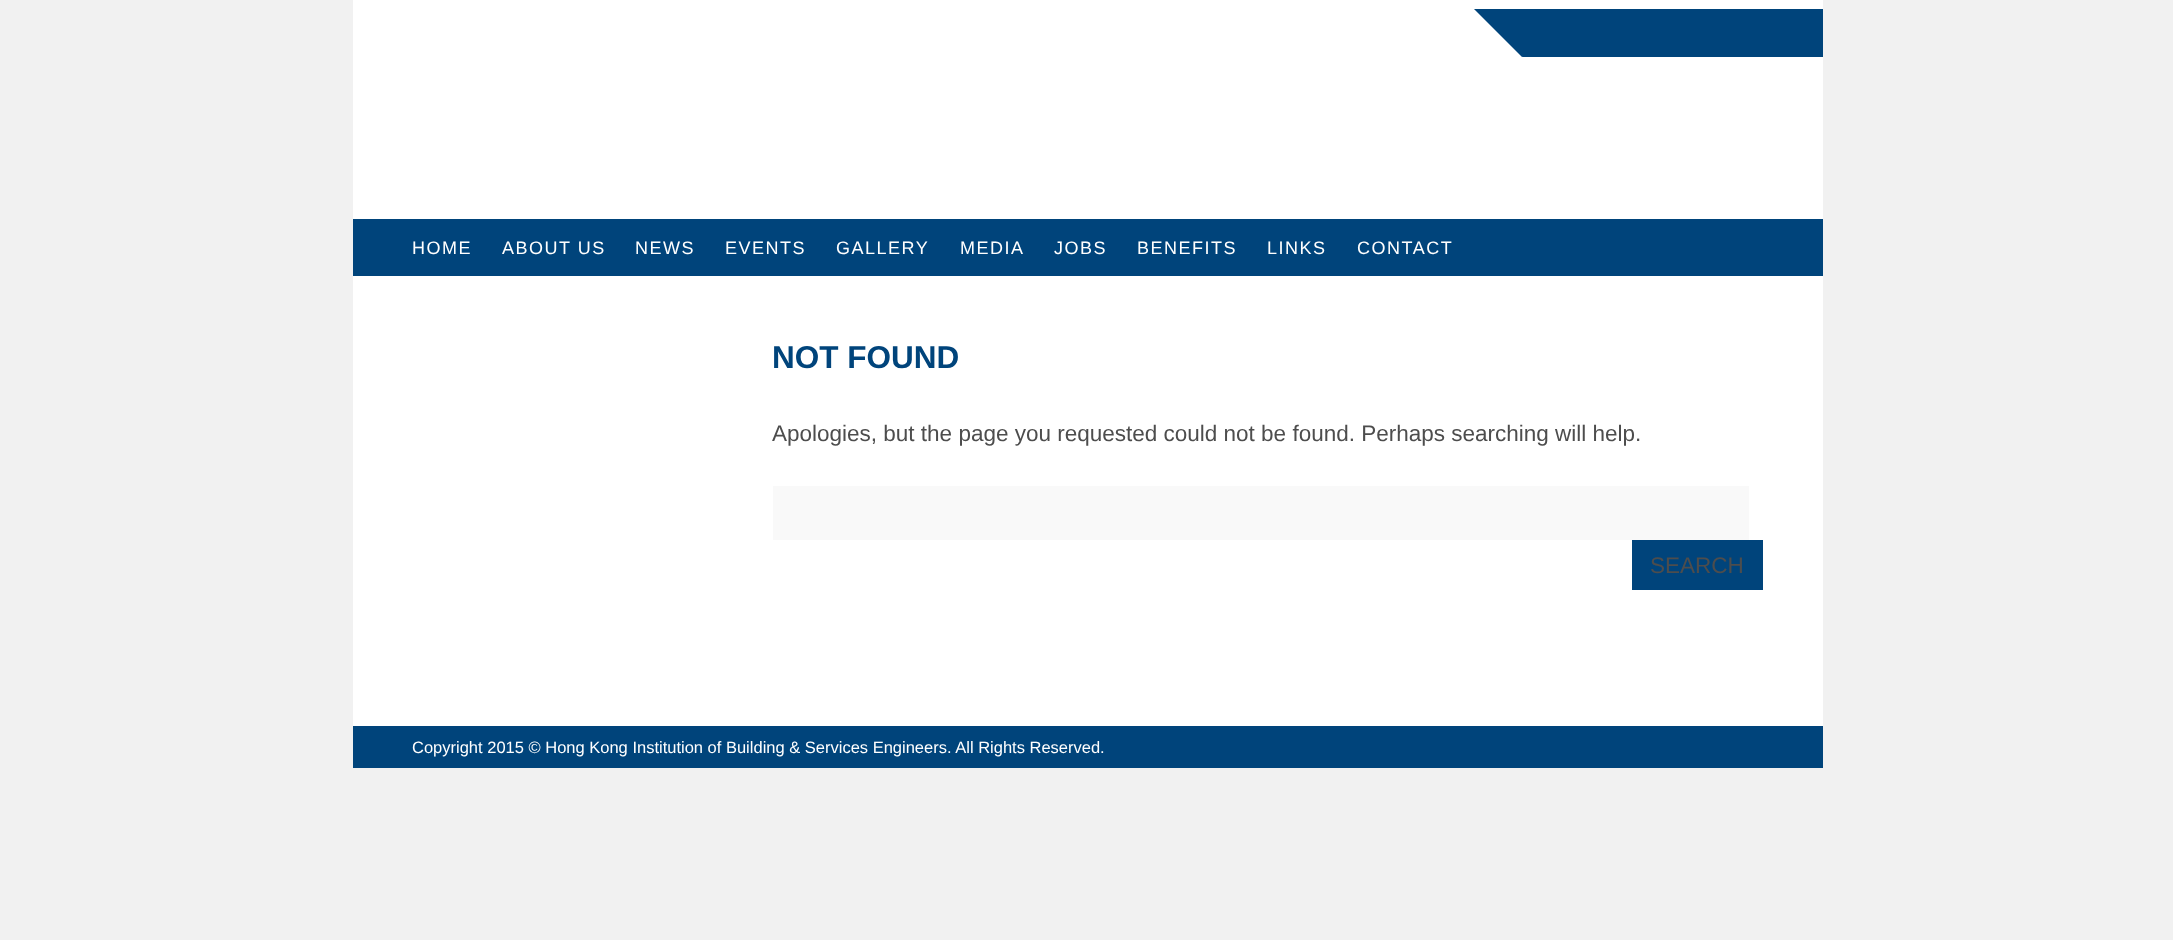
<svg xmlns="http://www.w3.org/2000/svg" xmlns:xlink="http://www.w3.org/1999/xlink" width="2173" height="940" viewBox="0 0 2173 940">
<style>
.cls-1{font:18px Liberation Sans;letter-spacing:1.5px;fill:#ffffff}
.cls-2{font:bold 31.5px Liberation Sans;fill:#00447b}
.cls-3{font:22.5px Liberation Sans;fill:#4d4d4d}
.cls-4{font:16.5px Liberation Sans;fill:#ffffff}
</style>
<rect width="100%" height="100%" fill="#f1f1f1"/>
<rect fill="#ffffff" x="353" y="0" width="1470" height="726"/>
<path fill="#00447b" d="M1474 9H1822L1522 57Z"/>
<rect fill="#00447b" x="1523" y="9" width="300" height="48"/>
<rect fill="#00447b" x="353" y="219" width="1470" height="57"/>
<rect fill="#f9f9f9" x="773" y="486" width="976" height="54"/>
<rect fill="#00447b" x="1632" y="540" width="131" height="50"/>
<rect fill="#00447b" x="353" y="726" width="1470" height="42"/>
<text class="cls-1" x="412" y="254">HOME</text>
<text class="cls-1" x="502" y="254">ABOUT US</text>
<text class="cls-1" x="635" y="254">NEWS</text>
<text class="cls-1" x="725" y="254">EVENTS</text>
<text class="cls-1" x="836" y="254">GALLERY</text>
<text class="cls-1" x="960" y="254">MEDIA</text>
<text class="cls-1" x="1054" y="254">JOBS</text>
<text class="cls-1" x="1137" y="254">BENEFITS</text>
<text class="cls-1" x="1267" y="254">LINKS</text>
<text class="cls-1" x="1357" y="254">CONTACT</text>
<text class="cls-2" x="772" y="368">NOT FOUND</text>
<text class="cls-3" x="772" y="441">Apologies, but the page you requested could not be found. Perhaps searching will help.</text>
<text class="cls-3" x="1650" y="573">SEARCH</text>
<text class="cls-4" x="412" y="753">Copyright 2015 © Hong Kong Institution of Building &amp; Services Engineers. All Rights Reserved.</text>
</svg>
